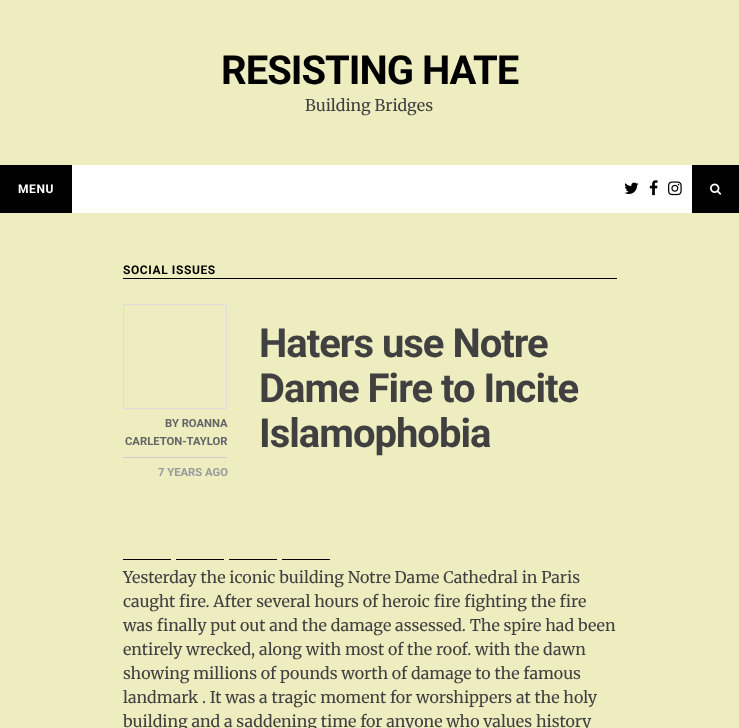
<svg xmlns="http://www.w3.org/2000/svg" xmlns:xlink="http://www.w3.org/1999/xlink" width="739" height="728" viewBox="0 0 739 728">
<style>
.cls-1{font:bold 40px Roboto;letter-spacing:-1px;fill:#000000}
.cls-2{font:16px Merriweather;fill:#404040}
.cls-3{font:bold 12px Roboto;letter-spacing:0.6px;fill:#ffffff}
.cls-4{font:bold 12px Roboto;letter-spacing:0.6px;fill:#000000}
.cls-5{font:bold 11.25px Roboto;fill:#636466}
.cls-6{font:bold 11.25px Roboto;fill:#97999c}
.cls-7{font:bold 40px Roboto;letter-spacing:-1px;fill:#404040}
</style>
<rect width="100%" height="100%" fill="#ededc0"/>
<rect fill="#ffffff" x="72" y="165" width="620" height="48"/>
<rect fill="#000000" x="0" y="165" width="72" height="48"/>
<image xlink:href="image0.png" x="624" y="182" width="15" height="12"/>
<image xlink:href="image1.png" x="649" y="180" width="9" height="16"/>
<image xlink:href="image2.png" x="668" y="181" width="14" height="15"/>
<rect fill="#000000" x="692" y="165" width="47" height="48"/>
<image xlink:href="image3.png" x="710" y="183" width="12" height="12"/>
<rect fill="#000000" x="123" y="278" width="494" height="1"/>
<rect fill="none" stroke="#dddddd" x="123.5" y="304.5" width="103" height="104"/>
<rect fill="#cccccc" x="123" y="457" width="104" height="1"/>
<rect fill="#000000" x="123" y="559" width="48" height="1"/>
<rect fill="#000000" x="176" y="559" width="48" height="1"/>
<rect fill="#000000" x="229" y="559" width="48" height="1"/>
<rect fill="#000000" x="282" y="559" width="48" height="1"/>
<text class="cls-1" x="221" y="84">RESISTING HATE</text>
<text class="cls-2" x="305" y="111">Building Bridges</text>
<text class="cls-3" x="18" y="193">MENU</text>
<text class="cls-4" x="123" y="274">SOCIAL ISSUES</text>
<text class="cls-5" x="165" y="427">BY ROANNA</text>
<text class="cls-5" x="125" y="445">CARLETON-TAYLOR</text>
<text class="cls-6" x="158" y="476">7 YEARS AGO</text>
<text class="cls-7"><tspan x="259" y="357">Haters use Notre</tspan><tspan x="259" y="402">Dame Fire to Incite</tspan><tspan x="259" y="447">Islamophobia</tspan></text>
<text class="cls-2"><tspan x="123" y="583">Yesterday the iconic building Notre Dame Cathedral in Paris</tspan><tspan x="123" y="607">caught fire. After several hours of heroic fire fighting the fire</tspan><tspan x="123" y="631">was finally put out and the damage assessed. The spire had been</tspan><tspan x="123" y="655">entirely wrecked, along with most of the roof. with the dawn</tspan><tspan x="123" y="679">showing millions of pounds worth of damage to the famous</tspan><tspan x="123" y="703">landmark . It was a tragic moment for worshippers at the holy</tspan><tspan x="123" y="727">building and a saddening time for anyone who values history</tspan></text>
</svg>
